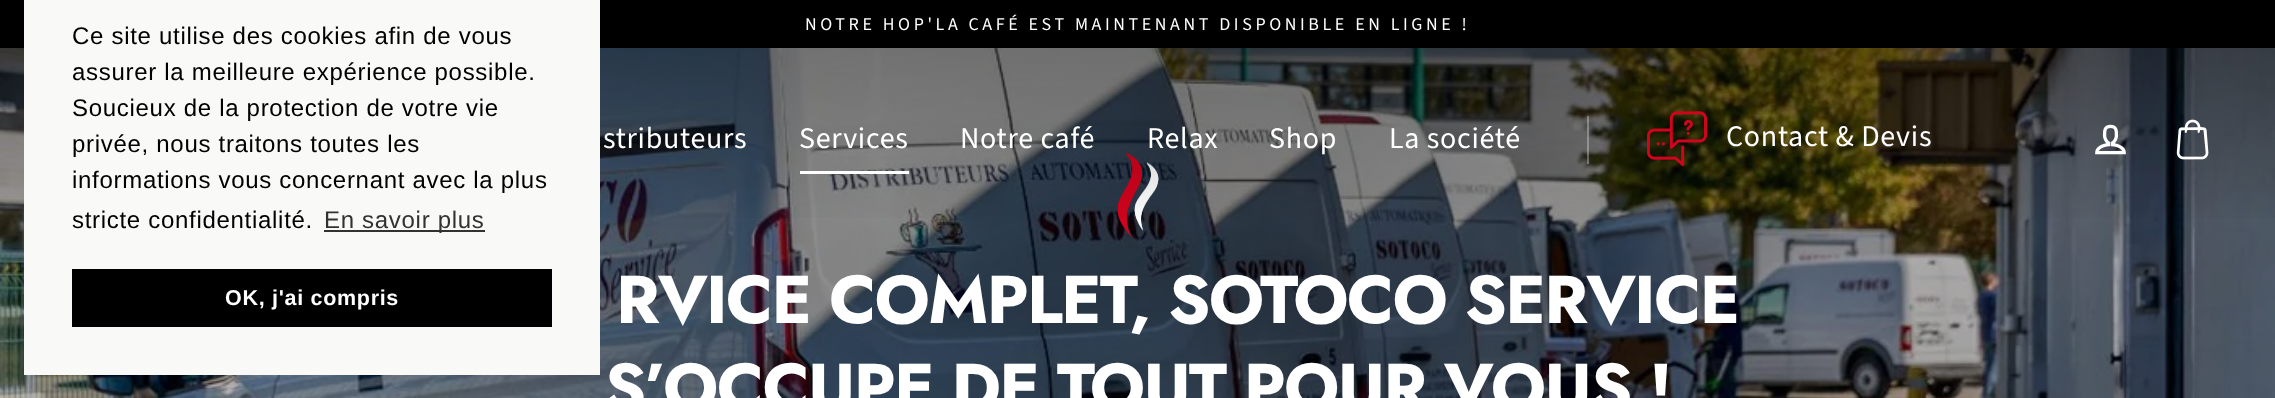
<svg xmlns="http://www.w3.org/2000/svg" xmlns:xlink="http://www.w3.org/1999/xlink" width="2275" height="398" viewBox="0 0 2275 398">
<style>
.cls-1{font:24px Liberation Sans;letter-spacing:0.7px;fill:#000000}
.cls-2{font:24px Liberation Sans;letter-spacing:0.7px;fill:#323231}
.cls-3{font:bold 21.5px Liberation Sans;letter-spacing:0.7px;fill:#ffffff}
.cls-4{font:18px Source Sans Pro;letter-spacing:3.6px;fill:#ffffff}
.cls-5{font:30px Source Sans Pro;letter-spacing:0.7px;fill:#ffffff}
.cls-6{font:bold 67.5px Jost;letter-spacing:-1.7px;fill:#ffffff}
</style>
<defs>
<linearGradient id="g1" gradientUnits="userSpaceOnUse" x1="1138" y1="0" x2="1138" y2="230"><stop offset="0" stop-color="#000000" stop-opacity="0.4"/><stop offset="1" stop-color="#000000" stop-opacity="0"/></linearGradient>
</defs>
<rect width="100%" height="100%" fill="#ffffff"/>
<image xlink:href="image3.png" x="0" y="48" width="2275" height="350"/>
<image xlink:href="image4.png" x="1118" y="153" width="41" height="84"/>
<rect fill="url(#g1)" x="0" y="48" width="2275" height="170"/>
<rect fill="#000000" x="0" y="0" width="2275" height="48"/>
<rect fill="#f9f9f7" x="24" y="0" width="576" height="375"/>
<rect fill="#323231" x="324" y="230" width="161" height="2"/>
<rect fill="#000000" x="72" y="269" width="480" height="58"/>
<rect fill="#ffffff" x="800" y="171" width="109" height="3"/>
<rect fill="#ffffff" fill-opacity="0.3" x="1587" y="116" width="2" height="48"/>
<image xlink:href="image0.png" x="1647" y="111" width="60" height="55"/>
<image xlink:href="image1.png" x="2095" y="124" width="31" height="31"/>
<image xlink:href="image2.png" x="2176" y="119" width="33" height="41"/>
<text class="cls-1"><tspan x="72" y="44">Ce site utilise des cookies afin de vous</tspan><tspan x="72" y="80">assurer la meilleure expérience possible.</tspan><tspan x="72" y="116">Soucieux de la protection de votre vie</tspan><tspan x="72" y="152">privée, nous traitons toutes les</tspan><tspan x="72" y="188">informations vous concernant avec la plus</tspan><tspan x="72" y="228">stricte confidentialité.</tspan></text>
<text class="cls-2" x="324" y="228">En savoir plus</text>
<text class="cls-3" x="225" y="305">OK, j'ai compris</text>
<text class="cls-4" x="805" y="30">NOTRE HOP'LA CAFÉ EST MAINTENANT DISPONIBLE EN LIGNE !</text>
<text class="cls-5" x="603" y="148">stributeurs</text>
<text class="cls-5" x="799" y="148">Services</text>
<text class="cls-5" x="960" y="148">Notre café</text>
<text class="cls-5" x="1147" y="148">Relax</text>
<text class="cls-5" x="1269" y="148">Shop</text>
<text class="cls-5" x="1389" y="148">La société</text>
<text class="cls-5" x="1726" y="146">Contact &amp; Devis</text>
<text class="cls-6" x="616" y="323">RVICE COMPLET, SOTOCO SERVICE</text>
<text class="cls-6" x="604" y="411">S’OCCUPE DE TOUT POUR VOUS !</text>
</svg>
